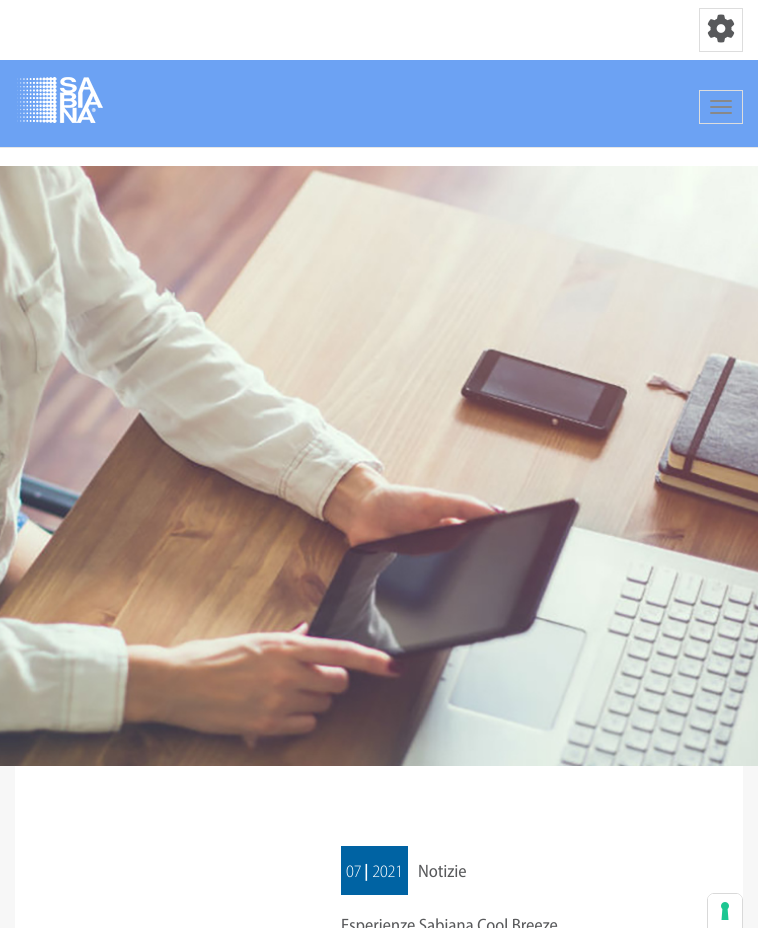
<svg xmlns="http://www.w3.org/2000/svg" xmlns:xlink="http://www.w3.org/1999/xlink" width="758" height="928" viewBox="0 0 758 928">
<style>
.cls-1{font:18px Liberation Sans;fill:#ffffff}
</style>
<rect width="100%" height="100%" fill="#ffffff"/>
<rect fill="#e7e7e7" x="0" y="147" width="758" height="1"/>
<rect fill="none" stroke="#dddddd" x="699.5" y="8.5" width="43" height="43"/>
<image xlink:href="image0.png" x="707" y="14" width="28" height="29"/>
<rect fill="#6ca2f3" x="0" y="60" width="758" height="87"/>
<image xlink:href="image1.png" x="17" y="77" width="86" height="46"/>
<rect fill="none" stroke="#dddddd" x="699.5" y="90.5" width="43" height="33"/>
<rect fill="#888888" x="710" y="100" width="22" height="2" rx="1"/>
<rect fill="#888888" x="710" y="106" width="22" height="2" rx="1"/>
<rect fill="#888888" x="710" y="112" width="22" height="2" rx="1"/>
<image xlink:href="image2.png" x="0" y="166" width="758" height="600"/>
<rect fill="#f7f7f7" x="0" y="766" width="758" height="162"/>
<rect fill="#ffffff" x="15" y="766" width="728" height="162"/>
<rect fill="#0063a3" x="341" y="846" width="67" height="49"/>
<image xlink:href="image3.png" x="346" y="865" width="15" height="13"/>
<image xlink:href="image4.png" x="373" y="865" width="27" height="13"/>
<image xlink:href="image5.png" x="419" y="864" width="47" height="14"/>
<image xlink:href="image6.png" x="342" y="918" width="216" height="10"/>
<path fill="none" stroke="#d9d9d9" d="M714 893.5H736C739.5 893.5 742.5 896.5 742.5 900V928.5H707.5V900C707.5 896.5 710.5 893.5 714 893.5Z"/>
<path fill="#ffffff" d="M714 894H736C739.5 894 742 896.5 742 900V928H708V900C708 896.5 710.5 894 714 894Z"/>
<image xlink:href="image7.png" x="721" y="902" width="8" height="18"/>
<text class="cls-1" x="364" y="877">|</text>
</svg>
